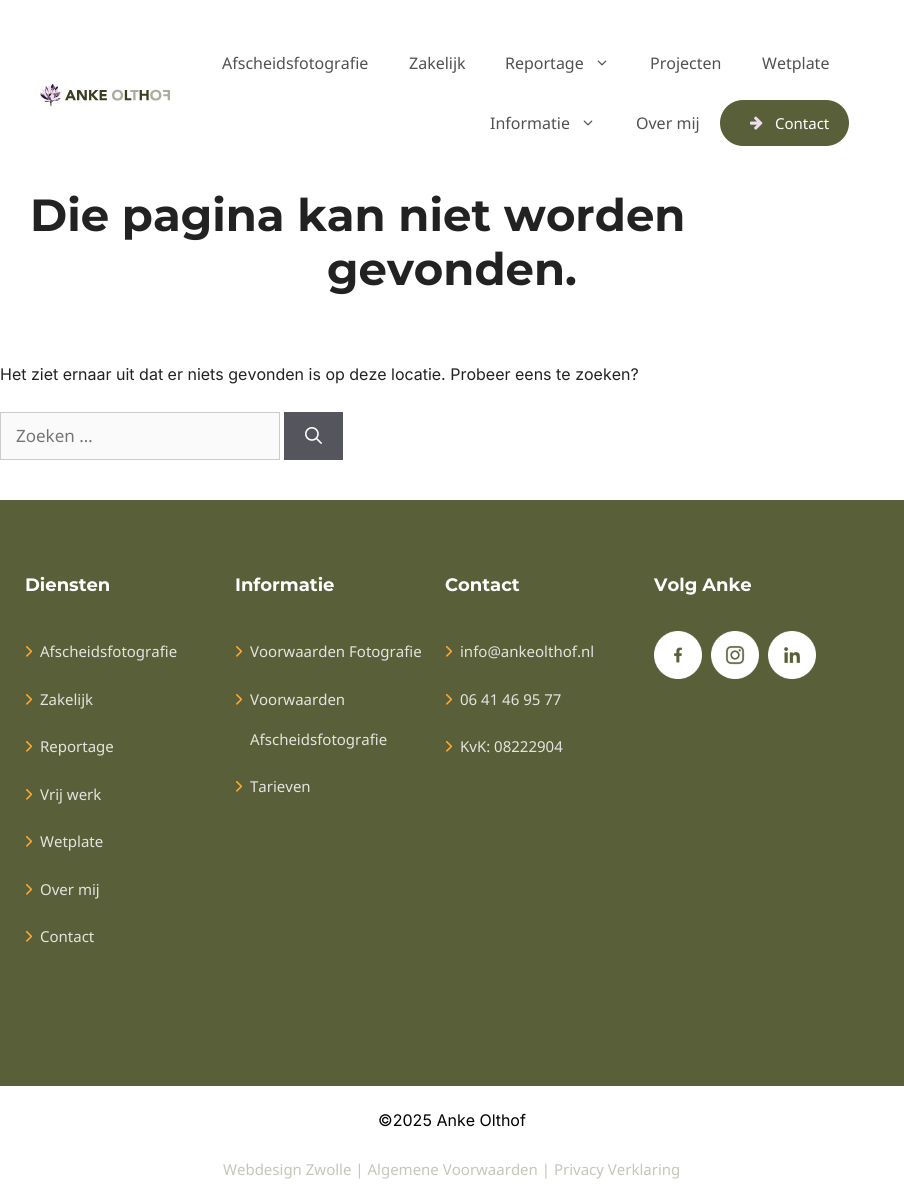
import math
import cairo

surface = cairo.ImageSurface(cairo.FORMAT_RGB24, 904, 1199)
cr = cairo.Context(surface)
options = cairo.FontOptions()
options.set_hint_metrics(cairo.HINT_METRICS_OFF)
options.set_hint_style(cairo.HINT_STYLE_NONE)
cr.set_font_options(options)
cr.set_miter_limit(4)


def rgb(code):
    cr.set_source_rgb(*(v / 255 for v in bytes.fromhex(code[-6:])))


def rrect(x, y, w, h, r):
    cr.new_sub_path()
    for i, (u, v) in enumerate([(x + w - r, y + h - r), (x + r, y + h - r), (x + r, y + r), (x + w - r, y + r)]):
        cr.arc(u, v, r, i * math.pi / 2, (i + 1) * math.pi / 2)
    cr.close_path()


def image(path, x, y, w, h):
    cr.save()
    cr.set_source_surface(cairo.ImageSurface.create_from_png(path), x, y)
    cr.rectangle(x, y, w, h)
    cr.fill()
    cr.restore()


rgb("#ffffff")
cr.paint()
image("img/1.png", 40, 84, 130, 22)
image("img/2.png", 597, 60, 10, 6)
image("img/2.png", 583, 120, 10, 6)
rgb("#595f39")
rrect(720, 100, 129, 46, 23)
cr.fill()
image("img/3.png", 750, 116, 13, 14)
rgb("#fafafa")
cr.rectangle(0.5, 412.5, 279, 47)
cr.fill_preserve()
rgb("#cccccc")
cr.set_line_width(1)
cr.stroke()
rgb("#55555e")
cr.rectangle(284, 412, 59, 48)
cr.fill()
image("img/4.png", 305, 427, 17, 17)
rgb("#595f39")
cr.rectangle(0, 500, 904, 586)
cr.fill()
image("img/5.png", 26, 646, 6, 11)
image("img/5.png", 26, 694, 6, 11)
image("img/5.png", 26, 741, 6, 11)
image("img/5.png", 26, 789, 6, 11)
image("img/5.png", 26, 836, 6, 11)
image("img/5.png", 26, 884, 6, 11)
image("img/5.png", 26, 931, 6, 11)
image("img/5.png", 236, 646, 6, 11)
image("img/5.png", 236, 694, 6, 11)
image("img/5.png", 236, 781, 6, 11)
image("img/5.png", 446, 646, 6, 11)
image("img/5.png", 446, 694, 6, 11)
image("img/5.png", 446, 741, 6, 11)
image("img/6.png", 654, 631, 48, 48)
image("img/7.png", 711, 631, 48, 48)
image("img/8.png", 768, 631, 48, 48)
cr.select_font_face("Noto Sans")
cr.set_font_size(16)
rgb("#515151")
for x, y, s in [
    (222, 69, "Afscheidsfotografie"),
    (409, 69, "Zakelijk"),
    (505, 69, "Reportage"),
    (650, 69, "Projecten"),
    (762, 69, "Wetplate"),
    (490, 129, "Informatie"),
    (636, 129, "Over mij"),
]:
    cr.move_to(x, y)
    cr.show_text(s)
cr.set_font_size(15)
rgb("#ffffff")
cr.move_to(775, 129)
cr.show_text("Contact")
cr.select_font_face("Montserrat", cairo.FONT_SLANT_NORMAL, cairo.FONT_WEIGHT_BOLD)
cr.set_font_size(45)
rgb("#222222")
cr.move_to(30, 231)
cr.show_text("Die pagina kan niet worden")
cr.move_to(327, 285)
cr.show_text("gevonden.")
cr.select_font_face("Inter")
cr.set_font_size(16)
cr.move_to(0, 380)
cr.show_text("Het ziet ernaar uit dat er niets gevonden is op deze locatie. Probeer eens te zoeken?")
cr.select_font_face("Noto Sans")
cr.set_font_size(17)
rgb("#757575")
cr.move_to(16, 442)
cr.show_text("Zoeken …")
cr.select_font_face("Montserrat", cairo.FONT_SLANT_NORMAL, cairo.FONT_WEIGHT_BOLD)
cr.set_font_size(18)
rgb("#ffffff")
cr.move_to(25, 591)
cr.show_text("Diensten")
cr.select_font_face("Noto Sans")
cr.set_font_size(15)
rgb("#e4e3de")
for x, y, s in [
    (40, 657, "Afscheidsfotografie"),
    (40, 705, "Zakelijk"),
    (40, 752, "Reportage"),
    (40, 800, "Vrij werk"),
    (40, 847, "Wetplate"),
    (40, 895, "Over mij"),
    (40, 942, "Contact"),
]:
    cr.move_to(x, y)
    cr.show_text(s)
cr.select_font_face("Montserrat", cairo.FONT_SLANT_NORMAL, cairo.FONT_WEIGHT_BOLD)
cr.set_font_size(18)
rgb("#ffffff")
cr.move_to(235, 591)
cr.show_text("Informatie")
cr.select_font_face("Noto Sans")
cr.set_font_size(15)
rgb("#e4e3de")
for x, y, s in [
    (250, 657, "Voorwaarden Fotografie"),
    (250, 705, "Voorwaarden"),
    (250, 745, "Afscheidsfotografie"),
    (250, 792, "Tarieven"),
]:
    cr.move_to(x, y)
    cr.show_text(s)
cr.select_font_face("Montserrat", cairo.FONT_SLANT_NORMAL, cairo.FONT_WEIGHT_BOLD)
cr.set_font_size(18)
rgb("#ffffff")
cr.move_to(445, 591)
cr.show_text("Contact")
cr.select_font_face("Noto Sans")
cr.set_font_size(15)
rgb("#e4e3de")
for x, y, s in [
    (460, 657, "info@ankeolthof.nl"),
    (460, 705, "06 41 46 95 77"),
    (460, 752, "KvK: 08222904"),
]:
    cr.move_to(x, y)
    cr.show_text(s)
cr.select_font_face("Montserrat", cairo.FONT_SLANT_NORMAL, cairo.FONT_WEIGHT_BOLD)
cr.set_font_size(18)
rgb("#ffffff")
cr.move_to(654, 591)
cr.show_text("Volg Anke")
cr.select_font_face("Inter")
cr.set_font_size(16)
rgb("#000000")
cr.move_to(378, 1126)
cr.show_text("©2025 Anke Olthof")
cr.select_font_face("Noto Sans")
cr.set_font_size(15)
rgb("#c4c6bb")
cr.move_to(223, 1175)
cr.show_text("Webdesign Zwolle | Algemene Voorwaarden | Privacy Verklaring")
surface.write_to_png("page.png")
